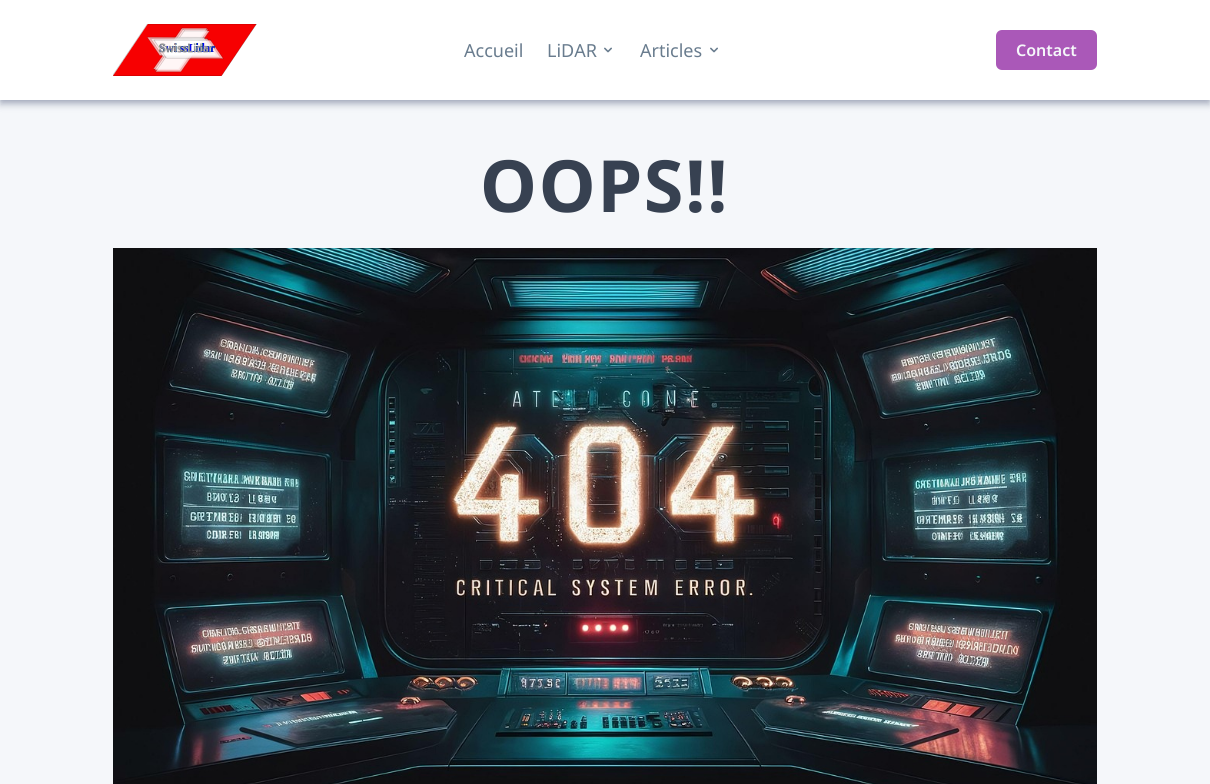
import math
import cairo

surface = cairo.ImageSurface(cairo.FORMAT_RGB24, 1210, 784)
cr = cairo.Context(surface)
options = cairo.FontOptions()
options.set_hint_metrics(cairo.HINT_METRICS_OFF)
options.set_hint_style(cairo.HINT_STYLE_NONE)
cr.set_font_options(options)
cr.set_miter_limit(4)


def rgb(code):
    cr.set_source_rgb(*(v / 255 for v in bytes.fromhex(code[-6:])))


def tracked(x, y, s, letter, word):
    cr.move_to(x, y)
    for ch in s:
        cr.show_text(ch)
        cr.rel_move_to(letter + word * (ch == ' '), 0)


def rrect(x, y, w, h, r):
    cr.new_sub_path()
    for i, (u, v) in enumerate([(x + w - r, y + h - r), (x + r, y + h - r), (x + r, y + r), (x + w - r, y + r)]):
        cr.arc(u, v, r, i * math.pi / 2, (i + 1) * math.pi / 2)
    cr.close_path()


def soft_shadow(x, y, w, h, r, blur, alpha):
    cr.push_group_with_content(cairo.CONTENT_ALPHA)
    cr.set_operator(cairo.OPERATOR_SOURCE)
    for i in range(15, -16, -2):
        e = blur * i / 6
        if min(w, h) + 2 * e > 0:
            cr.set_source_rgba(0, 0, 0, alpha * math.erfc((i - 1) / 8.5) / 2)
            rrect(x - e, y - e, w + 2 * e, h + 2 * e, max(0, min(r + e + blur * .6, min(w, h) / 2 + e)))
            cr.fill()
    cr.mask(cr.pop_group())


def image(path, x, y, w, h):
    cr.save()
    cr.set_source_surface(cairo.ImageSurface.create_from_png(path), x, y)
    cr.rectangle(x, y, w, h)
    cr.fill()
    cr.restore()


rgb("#f5f7fa")
cr.paint()
rgb("#1a2952")
soft_shadow(0, 6, 1210, 100, 0, 3, 0.2)
soft_shadow(0, 2, 1210, 100, 0, 2, 0.2)
rgb("#ffffff")
cr.rectangle(0, 0, 1210, 100)
cr.fill()
image("img/1.png", 113, 24, 144, 52)
image("img/2.png", 604, 47, 8, 6)
image("img/2.png", 710, 47, 8, 6)
rgb("#aa58b8")
rrect(996, 30, 101, 40, 6)
cr.fill()
image("img/3.png", 113, 248, 984, 536)
cr.select_font_face("Noto Sans")
cr.set_font_size(18)
rgb("#697c8e")
for x, y, s in [
    (464, 57, "Accueil"),
    (547, 57, "LiDAR"),
    (640, 57, "Articles"),
]:
    cr.move_to(x, y)
    cr.show_text(s)
cr.select_font_face("Noto Sans SemiBold")
cr.set_font_size(16)
rgb("#f5f7fa")
cr.move_to(1016, 56)
cr.show_text("Contact")
cr.select_font_face("Noto Sans", cairo.FONT_SLANT_NORMAL, cairo.FONT_WEIGHT_BOLD)
cr.set_font_size(72)
rgb("#374151")
tracked(480, 212, "OOPS!!", 1.75, 0)
surface.write_to_png("page.png")
